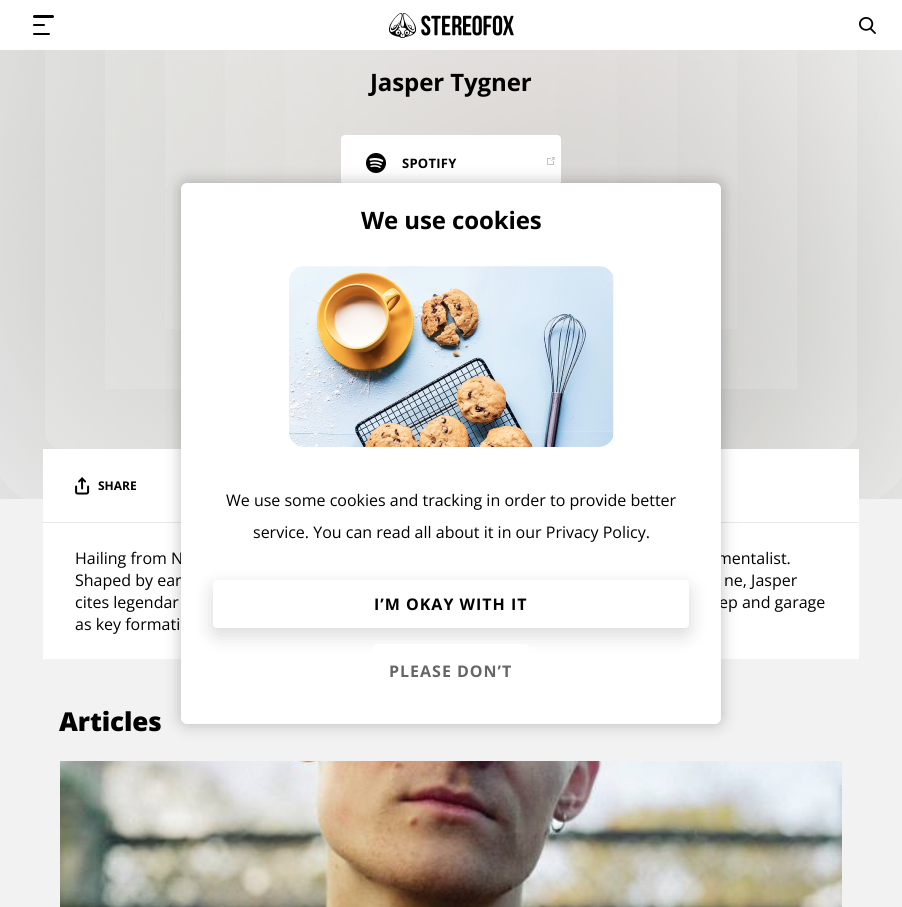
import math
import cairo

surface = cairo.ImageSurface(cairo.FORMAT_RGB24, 902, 907)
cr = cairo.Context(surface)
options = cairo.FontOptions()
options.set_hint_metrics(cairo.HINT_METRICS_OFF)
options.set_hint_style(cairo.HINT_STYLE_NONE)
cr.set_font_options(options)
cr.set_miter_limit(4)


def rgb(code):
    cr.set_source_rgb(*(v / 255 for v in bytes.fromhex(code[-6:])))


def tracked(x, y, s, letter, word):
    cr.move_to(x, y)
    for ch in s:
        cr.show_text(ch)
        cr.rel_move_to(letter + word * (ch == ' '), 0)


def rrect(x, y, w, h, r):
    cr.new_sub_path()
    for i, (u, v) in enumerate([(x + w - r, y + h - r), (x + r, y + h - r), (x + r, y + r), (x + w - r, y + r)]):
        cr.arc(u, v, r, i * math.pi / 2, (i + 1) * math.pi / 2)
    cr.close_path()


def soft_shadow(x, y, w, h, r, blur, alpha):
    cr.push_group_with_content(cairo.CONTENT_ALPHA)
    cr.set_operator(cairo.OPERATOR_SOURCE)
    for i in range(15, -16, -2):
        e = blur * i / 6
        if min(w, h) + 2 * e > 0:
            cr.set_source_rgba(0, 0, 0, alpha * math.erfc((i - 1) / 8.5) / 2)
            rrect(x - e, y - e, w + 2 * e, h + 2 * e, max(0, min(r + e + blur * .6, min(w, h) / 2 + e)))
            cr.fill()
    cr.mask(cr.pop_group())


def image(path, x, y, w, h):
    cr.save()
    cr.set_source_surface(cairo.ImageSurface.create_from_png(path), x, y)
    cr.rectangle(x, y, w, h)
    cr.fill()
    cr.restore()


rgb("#f2f2f2")
cr.paint()
cr.save()
cr.rectangle(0, 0, 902, 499)
cr.clip()
rgb("#ffffff")
soft_shadow(-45, -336, 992, 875, 0, 180, 1)
cr.restore()
image("img/3.png", 0, 50, 902, 449)
cr.save()
cr.rectangle(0, 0, 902, 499)
cr.clip()
rgb("#ffffff")
soft_shadow(-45, -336, 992, 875, 0, 180, 0.66)
cr.restore()
rgb("#ffffff")
cr.rectangle(0, 0, 902, 50)
cr.fill()
rgb("#000000")
rrect(33, 15, 21, 3, 1.5)
cr.fill()
rrect(33, 24, 12, 2, 1)
cr.fill()
rrect(33, 33, 17, 2, 1)
cr.fill()
image("img/1.png", 389, 13, 125, 25)
image("img/2.png", 859, 17, 17, 17)
rgb("#ffffff")
rrect(341, 135, 220, 56, 4)
cr.fill()
image("img/4.png", 366, 153, 20, 20)
image("img/5.png", 547, 157, 8, 8)
cr.rectangle(43, 449, 816, 73)
cr.fill()
rgb("#e9e9e9")
cr.rectangle(43, 522, 816, 1)
cr.fill()
image("img/6.png", 75, 477, 15, 18)
rgb("#ffffff")
cr.rectangle(43, 523, 816, 136)
cr.fill()
image("img/7.png", 60, 761, 782, 146)
rgb("#000000")
soft_shadow(181, 183, 540, 541, 6, 8, 0.25)
cr.select_font_face("Open Sans", cairo.FONT_SLANT_NORMAL, cairo.FONT_WEIGHT_BOLD)
cr.set_font_size(24)
rgb("#000000")
tracked(370, 91, "Jasper Tygner", -0.1, 0)
cr.set_font_size(13)
tracked(402, 168, "SPOTIFY", 0.25, 0)
cr.set_font_size(12)
cr.move_to(98, 490)
cr.show_text("SHARE")
cr.select_font_face("Open Sans")
cr.set_font_size(16)
for x, y, s in [
    (75, 564, "Hailing from N"),
    (717, 564, "mentalist."),
    (75, 586, "Shaped by ear"),
    (724, 586, "ne, Jasper"),
    (75, 608, "cites legendar"),
    (719, 608, "ep and garage"),
    (75, 630, "as key formati"),
]:
    cr.move_to(x, y)
    cr.show_text(s)
cr.select_font_face("Open Sans ExtraBold")
cr.set_font_size(26)
tracked(59, 731, "Articles", -0.1, 0)
rgb("#ffffff")
rrect(181, 183, 540, 541, 6)
cr.fill()
cr.select_font_face("Open Sans", cairo.FONT_SLANT_NORMAL, cairo.FONT_WEIGHT_BOLD)
cr.set_font_size(24)
rgb("#000000")
tracked(361, 229, "We use cookies", -0.1, 0)
image("img/8.png", 289, 266, 325, 181)
cr.select_font_face("Open Sans")
cr.set_font_size(16)
cr.move_to(226, 506)
cr.show_text("We use some cookies and tracking in order to provide better")
cr.move_to(253, 538)
cr.show_text("service. You can read all about it in our Privacy Policy.")
rgb("#000000")
soft_shadow(213, 587, 476, 48, 4, 10, 0.15)
rgb("#ffffff")
rrect(213, 580, 476, 48, 4)
cr.fill()
cr.select_font_face("Open Sans", cairo.FONT_SLANT_NORMAL, cairo.FONT_WEIGHT_BOLD)
rgb("#000000")
tracked(374, 610, "I’M OKAY WITH IT", 1, 0)
rgb("#ffffff")
rrect(373, 644, 156, 56, 4)
cr.fill()
rgb("#666666")
tracked(389, 677, "PLEASE DON’T", 1, 0)
surface.write_to_png("page.png")
